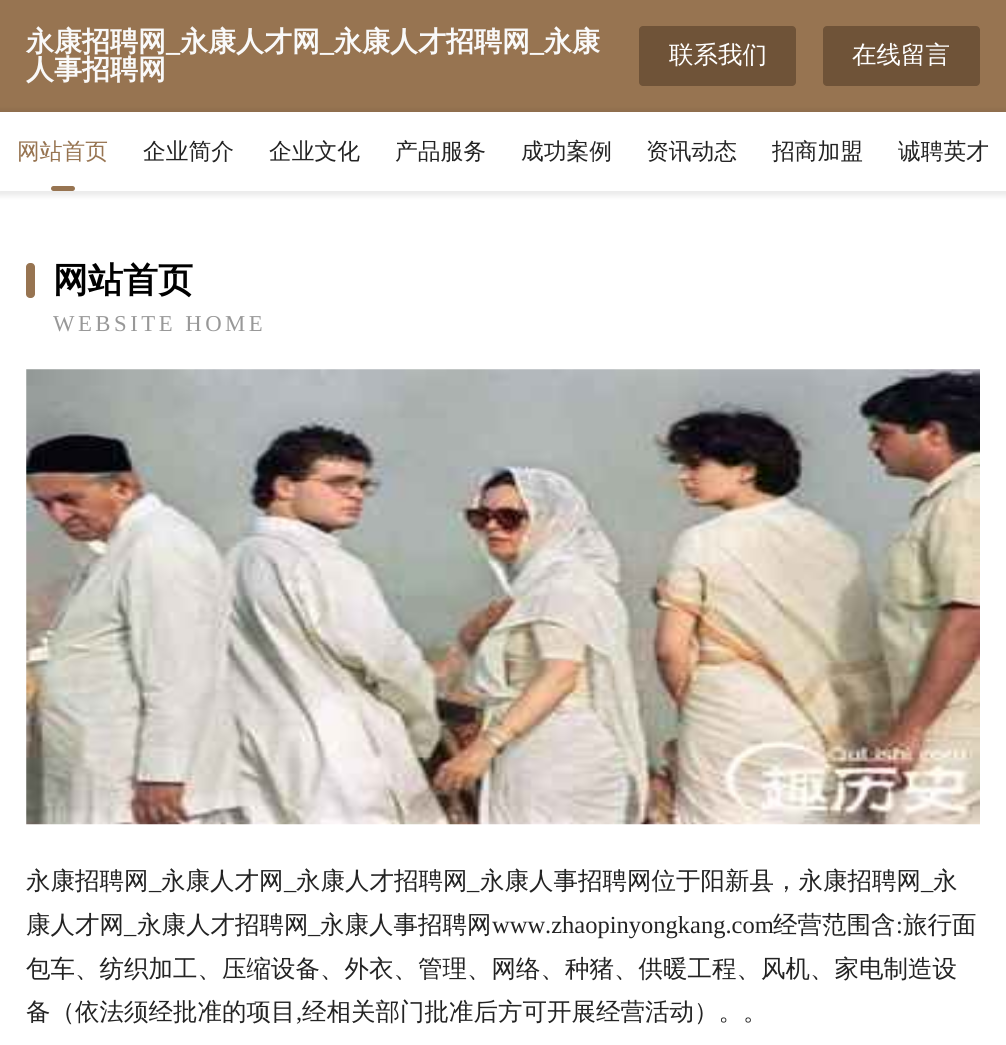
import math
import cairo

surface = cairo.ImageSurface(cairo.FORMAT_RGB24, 1006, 1045)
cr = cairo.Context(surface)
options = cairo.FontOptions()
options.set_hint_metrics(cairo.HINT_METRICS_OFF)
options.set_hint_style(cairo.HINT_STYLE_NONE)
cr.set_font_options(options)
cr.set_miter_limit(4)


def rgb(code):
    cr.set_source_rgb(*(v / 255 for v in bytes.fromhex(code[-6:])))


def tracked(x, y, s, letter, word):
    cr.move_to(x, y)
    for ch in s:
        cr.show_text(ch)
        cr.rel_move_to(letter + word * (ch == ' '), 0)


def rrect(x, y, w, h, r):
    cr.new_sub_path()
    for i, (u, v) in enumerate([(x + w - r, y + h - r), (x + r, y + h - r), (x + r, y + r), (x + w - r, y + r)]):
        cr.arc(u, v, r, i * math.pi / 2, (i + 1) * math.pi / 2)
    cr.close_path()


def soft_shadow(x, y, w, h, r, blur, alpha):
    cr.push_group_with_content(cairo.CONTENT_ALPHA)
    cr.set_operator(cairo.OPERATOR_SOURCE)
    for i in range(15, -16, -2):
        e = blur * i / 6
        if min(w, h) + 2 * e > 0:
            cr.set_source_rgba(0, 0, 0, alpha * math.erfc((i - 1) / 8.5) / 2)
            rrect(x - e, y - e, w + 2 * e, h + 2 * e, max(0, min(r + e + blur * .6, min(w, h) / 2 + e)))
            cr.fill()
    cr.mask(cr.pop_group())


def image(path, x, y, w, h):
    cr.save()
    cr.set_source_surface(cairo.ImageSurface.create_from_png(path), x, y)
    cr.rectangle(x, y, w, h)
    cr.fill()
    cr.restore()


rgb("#ffffff")
cr.paint()
rgb("#977451")
cr.rectangle(0, 0, 1006, 112)
cr.fill()
rgb("#6f5338")
rrect(639, 26, 157, 60, 4)
cr.fill()
rrect(823, 26, 157, 60, 4)
cr.fill()
rgb("#000000")
soft_shadow(-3, 110, 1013, 86, 0, 2.5, 0.08)
rgb("#ffffff")
cr.rectangle(0, 112, 1006, 79)
cr.fill()
rgb("#977451")
rrect(51, 186, 24, 5, 2.5)
cr.fill()
rrect(26, 263, 9, 35, 4)
cr.fill()
image("img/1.png", 26, 369, 954, 456)
cr.select_font_face("WenQuanYi Zen Hei", cairo.FONT_SLANT_NORMAL, cairo.FONT_WEIGHT_BOLD)
cr.set_font_size(28)
rgb("#f9f9f9")
cr.move_to(26, 51)
cr.show_text("永康招聘网")
cr.select_font_face("Liberation Serif", cairo.FONT_SLANT_NORMAL, cairo.FONT_WEIGHT_BOLD)
cr.move_to(166, 51)
cr.show_text("_")
cr.select_font_face("WenQuanYi Zen Hei", cairo.FONT_SLANT_NORMAL, cairo.FONT_WEIGHT_BOLD)
cr.move_to(180, 51)
cr.show_text("永康人才网")
cr.select_font_face("Liberation Serif", cairo.FONT_SLANT_NORMAL, cairo.FONT_WEIGHT_BOLD)
cr.move_to(320, 51)
cr.show_text("_")
cr.select_font_face("WenQuanYi Zen Hei", cairo.FONT_SLANT_NORMAL, cairo.FONT_WEIGHT_BOLD)
cr.move_to(334, 51)
cr.show_text("永康人才招聘网")
cr.select_font_face("Liberation Serif", cairo.FONT_SLANT_NORMAL, cairo.FONT_WEIGHT_BOLD)
cr.move_to(530, 51)
cr.show_text("_")
cr.select_font_face("WenQuanYi Zen Hei", cairo.FONT_SLANT_NORMAL, cairo.FONT_WEIGHT_BOLD)
cr.move_to(544, 51)
cr.show_text("永康")
cr.move_to(26, 79)
cr.show_text("人事招聘网")
cr.select_font_face("WenQuanYi Zen Hei Medium")
cr.set_font_size(24.5)
rgb("#ffffff")
cr.move_to(669, 63)
cr.show_text("联系我们")
cr.move_to(852, 63)
cr.show_text("在线留言")
cr.set_font_size(22.75)
rgb("#977451")
cr.move_to(17, 159)
cr.show_text("网站首页")
rgb("#232323")
for x, y, s in [
    (143, 159, "企业简介"),
    (269, 159, "企业文化"),
    (395, 159, "产品服务"),
    (521, 159, "成功案例"),
    (646, 159, "资讯动态"),
    (772, 159, "招商加盟"),
    (898, 159, "诚聘英才"),
]:
    cr.move_to(x, y)
    cr.show_text(s)
cr.select_font_face("WenQuanYi Zen Hei", cairo.FONT_SLANT_NORMAL, cairo.FONT_WEIGHT_BOLD)
cr.set_font_size(35)
rgb("#000000")
cr.move_to(53, 292)
cr.show_text("网站首页")
cr.select_font_face("Liberation Serif")
cr.set_font_size(22.75)
rgb("#989898")
tracked(53, 331, "WEBSITE HOME", 3.5, 0)
cr.select_font_face("WenQuanYi Zen Hei Medium")
cr.set_font_size(24.5)
rgb("#232323")
cr.move_to(26, 889)
cr.show_text("永康招聘网")
cr.select_font_face("Liberation Serif")
cr.move_to(149, 889)
cr.show_text("_")
cr.select_font_face("WenQuanYi Zen Hei Medium")
cr.move_to(161, 889)
cr.show_text("永康人才网")
cr.select_font_face("Liberation Serif")
cr.move_to(284, 889)
cr.show_text("_")
cr.select_font_face("WenQuanYi Zen Hei Medium")
cr.move_to(296, 889)
cr.show_text("永康人才招聘网")
cr.select_font_face("Liberation Serif")
cr.move_to(467, 889)
cr.show_text("_")
cr.select_font_face("WenQuanYi Zen Hei Medium")
cr.move_to(480, 889)
cr.show_text("永康人事招聘网位于阳新县，永康招聘网")
cr.select_font_face("Liberation Serif")
cr.move_to(921, 889)
cr.show_text("_")
cr.select_font_face("WenQuanYi Zen Hei Medium")
cr.move_to(933, 889)
cr.show_text("永")
cr.move_to(26, 933)
cr.show_text("康人才网")
cr.select_font_face("Liberation Serif")
cr.move_to(492, 933)
cr.show_text("www.zhaopinyongkang.com")
cr.select_font_face("WenQuanYi Zen Hei Medium")
cr.move_to(773, 933)
cr.show_text("经营范围含")
cr.select_font_face("Liberation Serif")
cr.move_to(896, 933)
cr.show_text(":")
cr.select_font_face("WenQuanYi Zen Hei Medium")
cr.move_to(903, 933)
cr.show_text("旅行面")
cr.select_font_face("Liberation Serif")
cr.move_to(124, 933)
cr.show_text("_")
cr.select_font_face("WenQuanYi Zen Hei Medium")
cr.move_to(137, 933)
cr.show_text("永康人才招聘网")
cr.select_font_face("Liberation Serif")
cr.move_to(308, 933)
cr.show_text("_")
cr.select_font_face("WenQuanYi Zen Hei Medium")
for x, y, s in [
    (320, 933, "永康人事招聘网"),
    (26, 977, "包车、纺织加工、压缩设备、外衣、管理、网络、种猪、供暖工程、风机、家电制造设"),
    (26, 1020, "备（依法须经批准的项目"),
]:
    cr.move_to(x, y)
    cr.show_text(s)
cr.select_font_face("Liberation Serif")
cr.move_to(296, 1020)
cr.show_text(",")
cr.select_font_face("WenQuanYi Zen Hei Medium")
cr.move_to(302, 1020)
cr.show_text("经相关部门批准后方可开展经营活动）。。")
surface.write_to_png("page.png")
